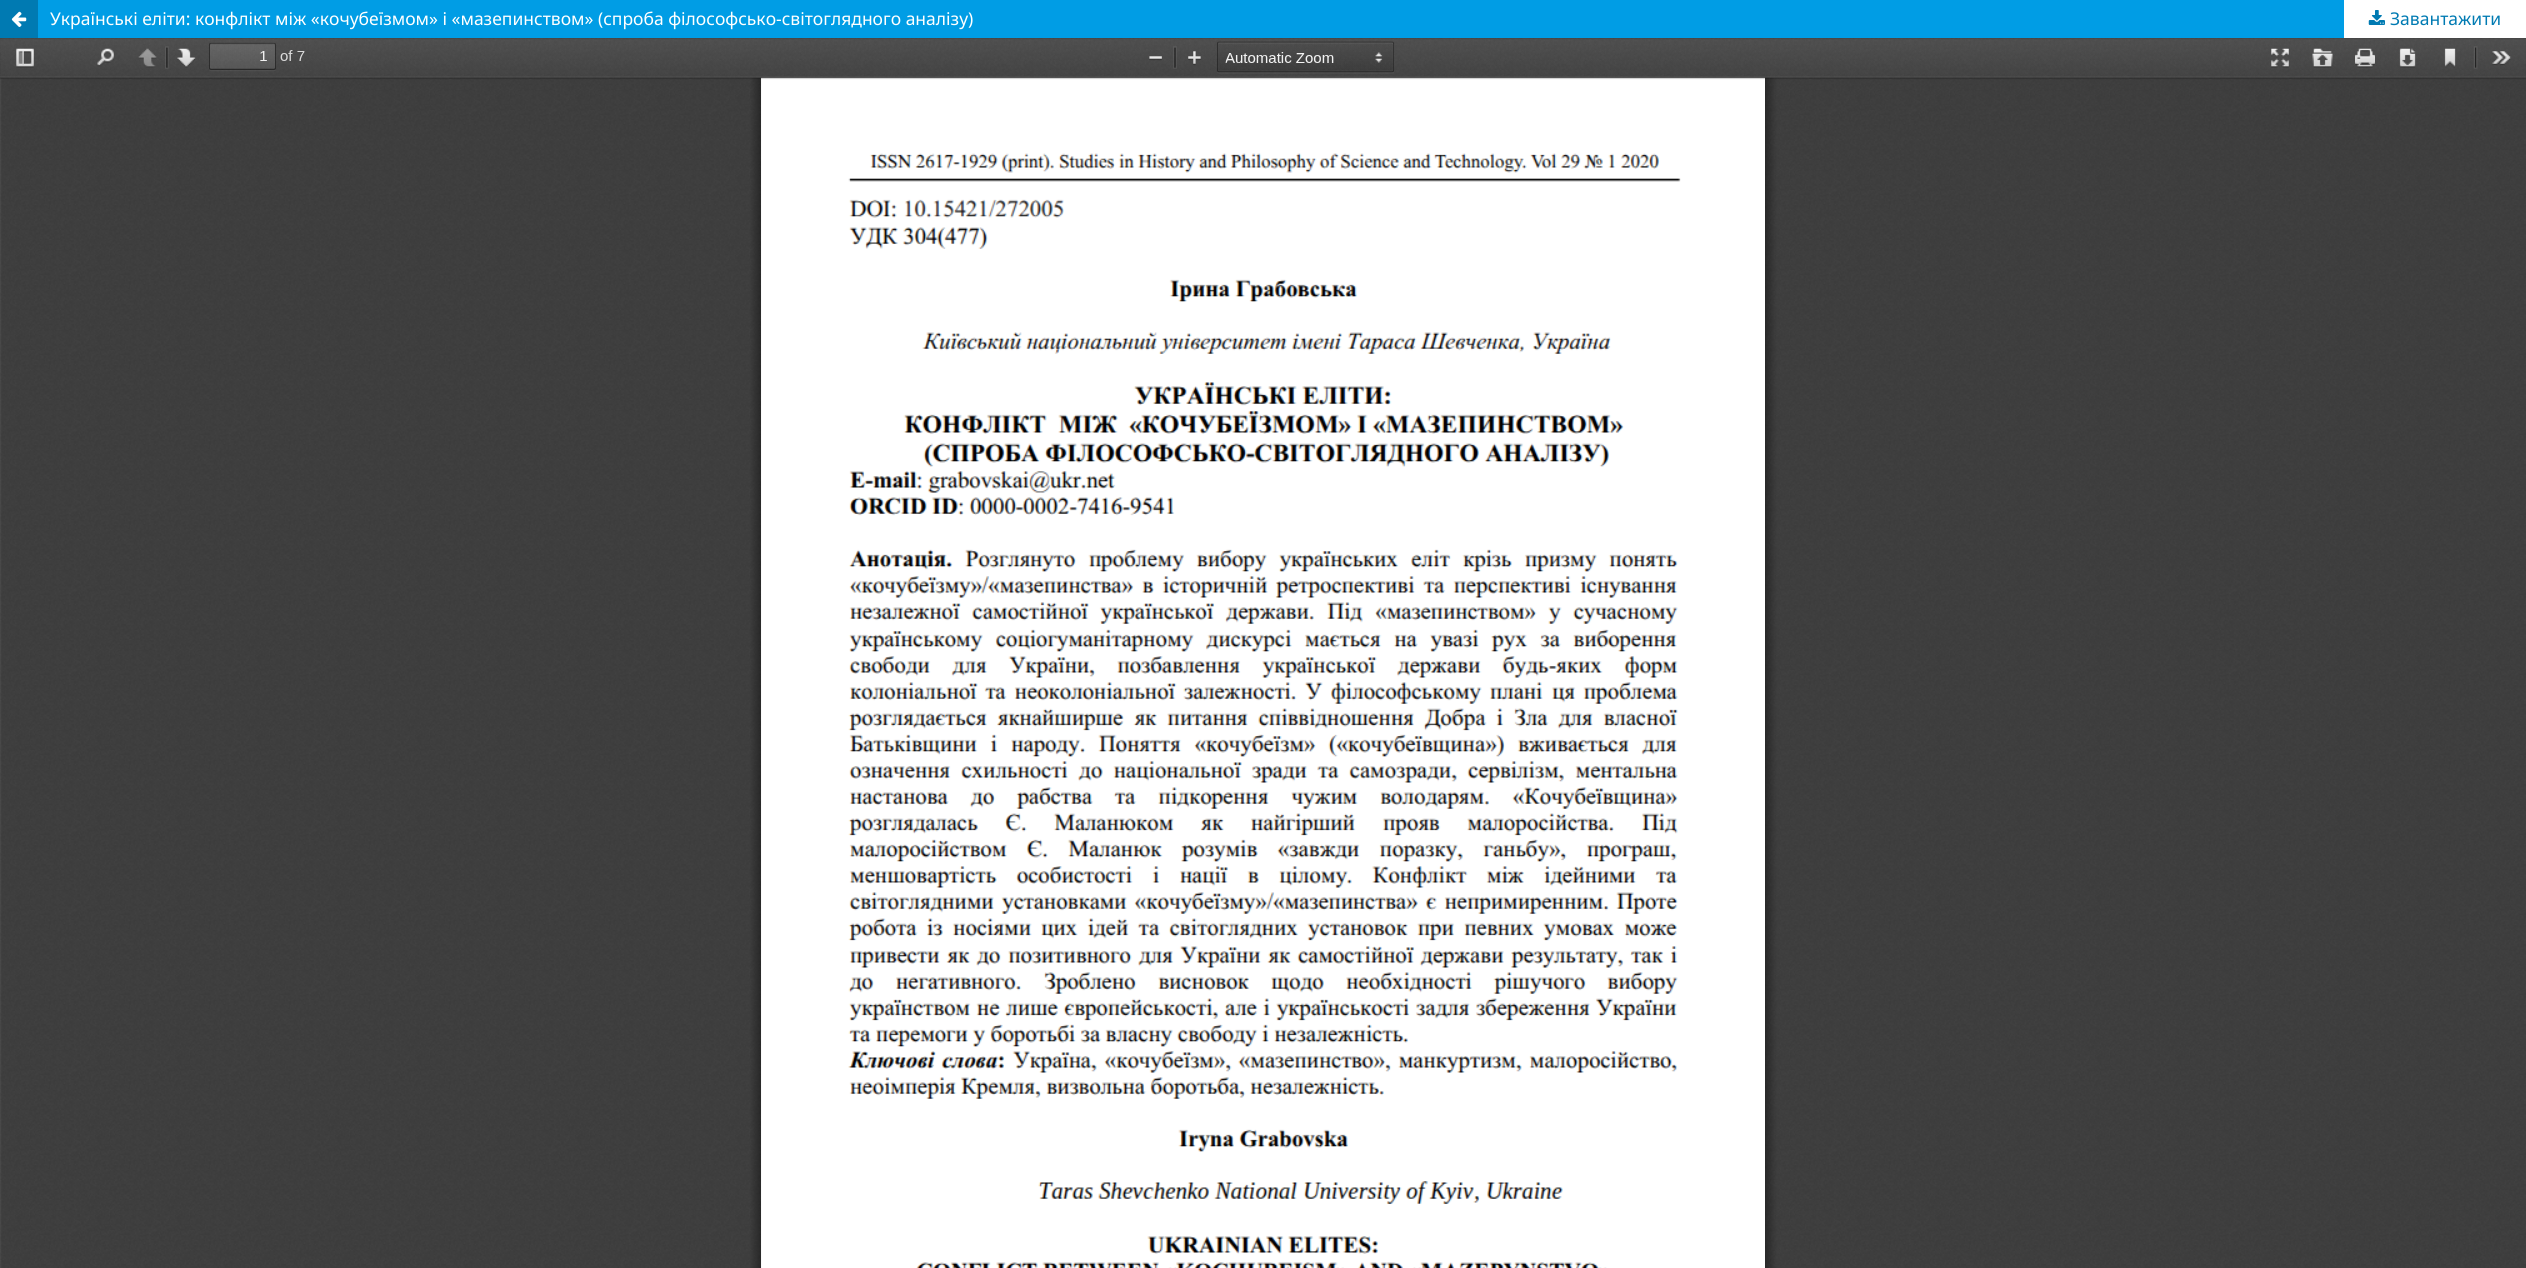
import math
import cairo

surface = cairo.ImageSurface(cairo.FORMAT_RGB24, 2526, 1268)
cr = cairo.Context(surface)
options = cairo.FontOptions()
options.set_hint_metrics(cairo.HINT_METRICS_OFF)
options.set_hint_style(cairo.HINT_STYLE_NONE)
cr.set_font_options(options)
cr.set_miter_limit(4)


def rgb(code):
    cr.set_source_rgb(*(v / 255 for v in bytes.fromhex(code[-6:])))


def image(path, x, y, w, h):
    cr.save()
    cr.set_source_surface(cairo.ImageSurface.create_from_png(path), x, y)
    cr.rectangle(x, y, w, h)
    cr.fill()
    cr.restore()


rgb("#ffffff")
cr.paint()
rgb("#009de5")
cr.rectangle(38, 0, 2306, 38)
cr.fill()
rgb("#007ab2")
cr.rectangle(0, 0, 38, 38)
cr.fill()
image("img/1.png", 11, 11, 16, 16)
image("img/2.png", 2368, 10, 17, 15)
image("img/3.png", 0, 38, 2526, 1230)
cr.select_font_face("Noto Sans")
cr.set_font_size(17.5)
rgb("#ffffff")
cr.move_to(50, 25)
cr.show_text("Українські еліти: конфлікт між «кочубеїзмом» і «мазепинством» (спроба філософсько-світоглядного аналізу)")
rgb("#007ab2")
cr.move_to(2390, 25)
cr.show_text("Завантажити")
surface.write_to_png("page.png")
